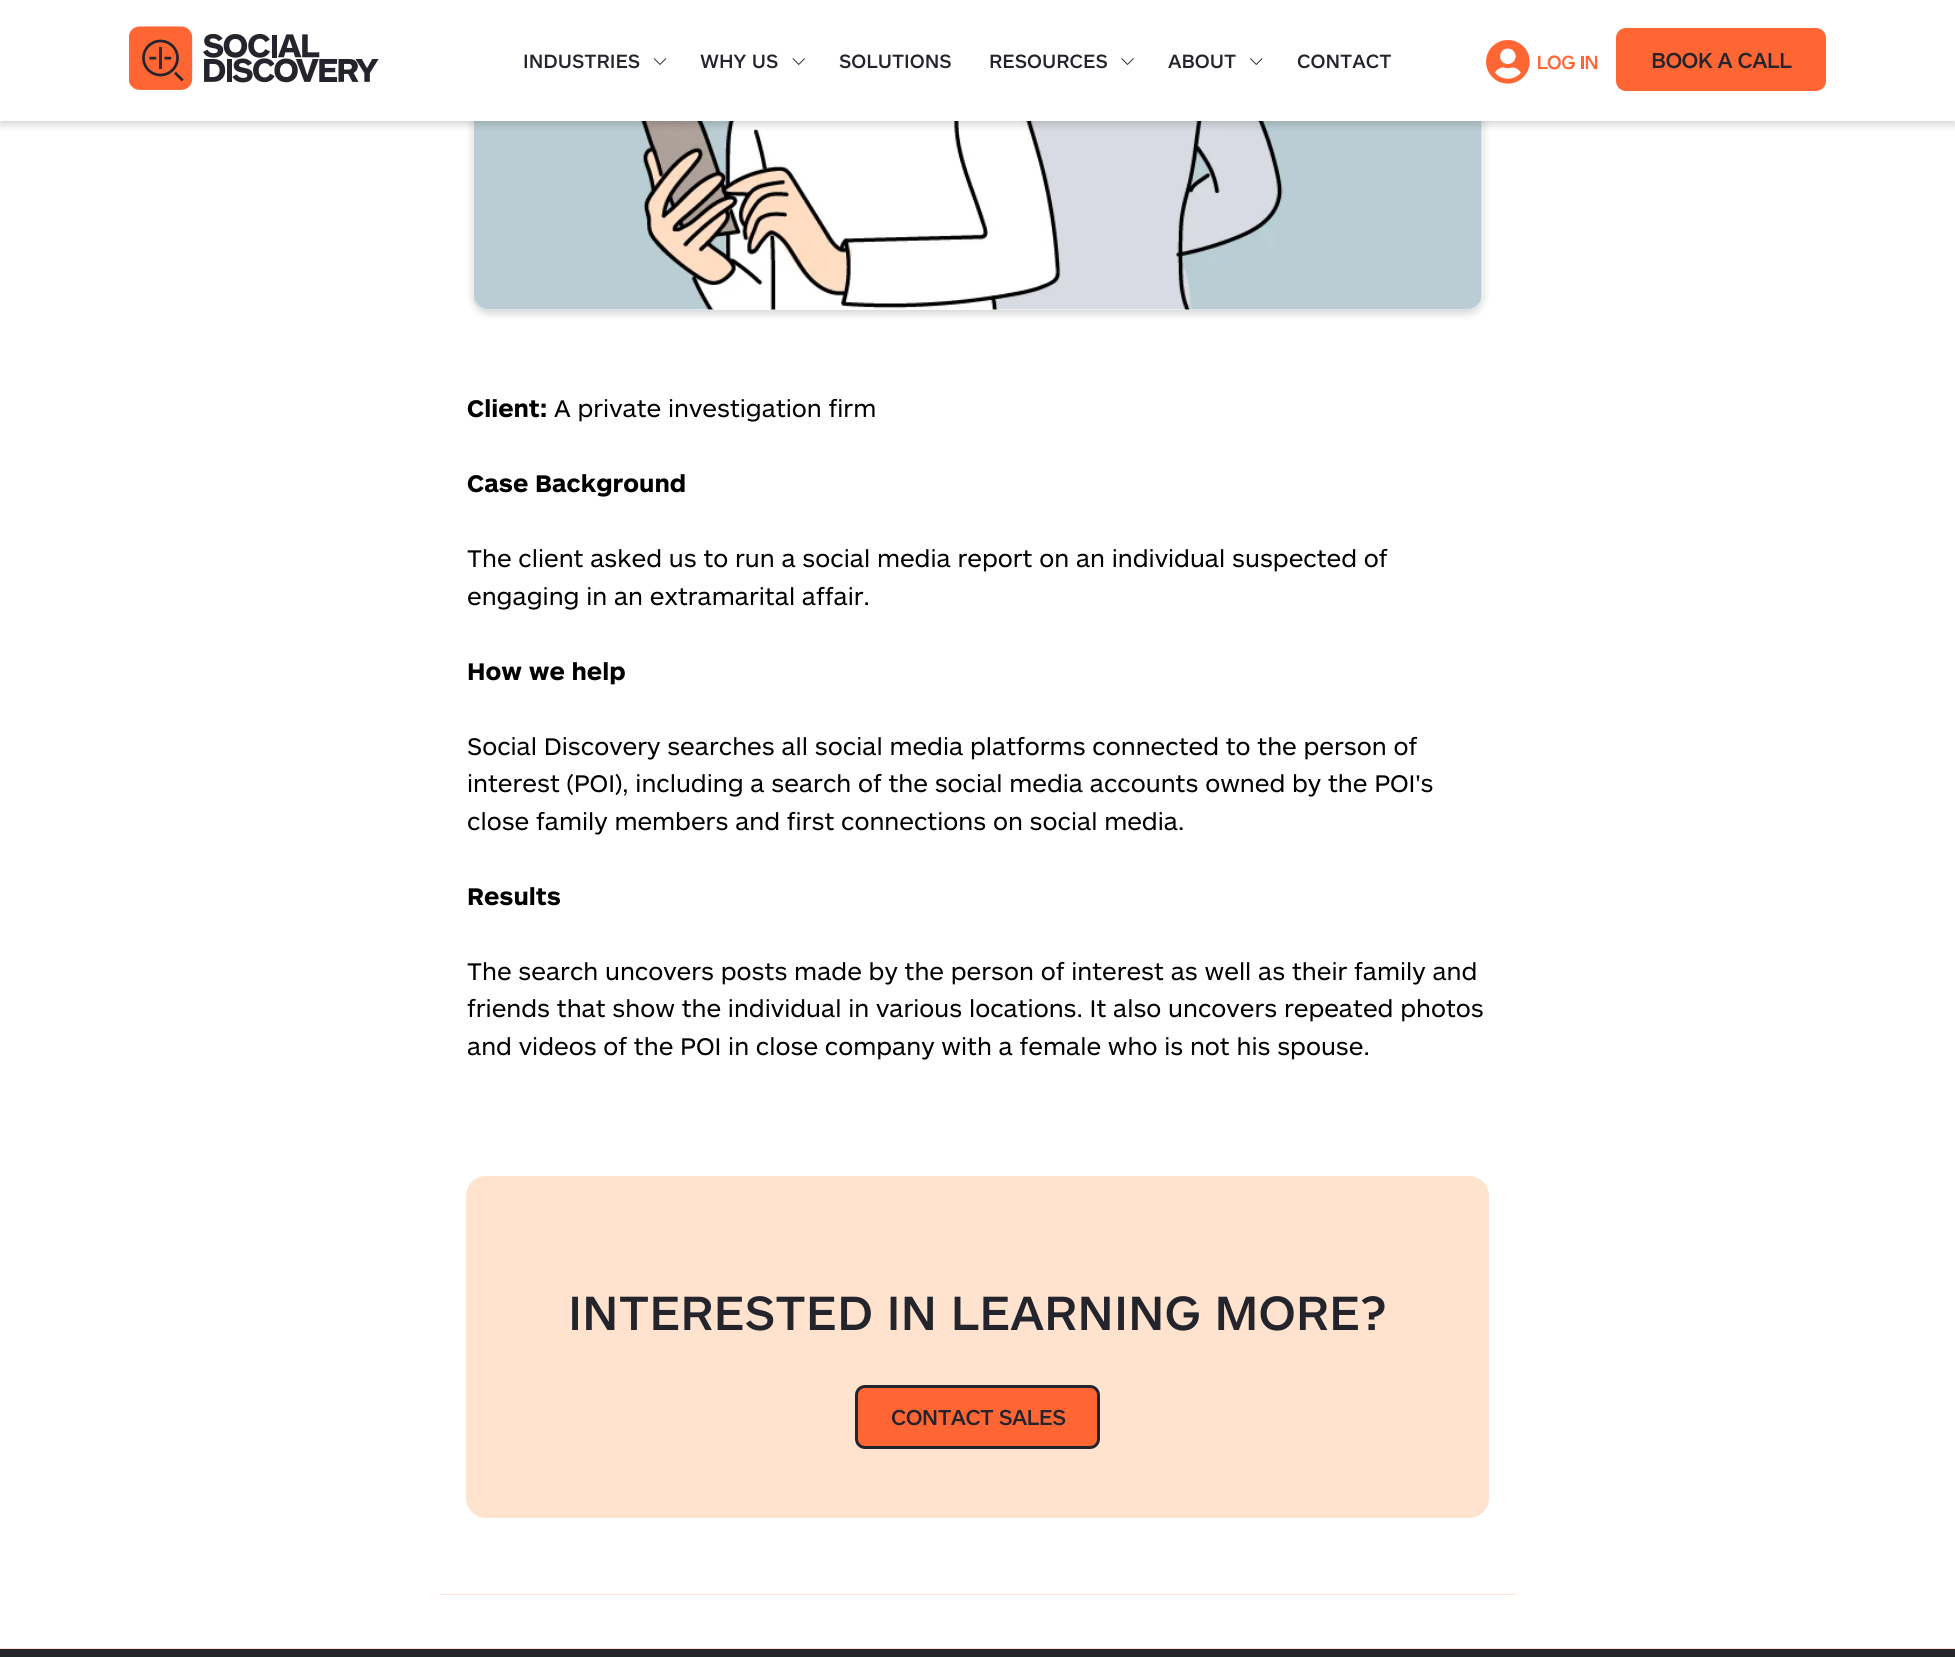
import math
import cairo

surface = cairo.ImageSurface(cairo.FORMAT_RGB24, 1955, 1657)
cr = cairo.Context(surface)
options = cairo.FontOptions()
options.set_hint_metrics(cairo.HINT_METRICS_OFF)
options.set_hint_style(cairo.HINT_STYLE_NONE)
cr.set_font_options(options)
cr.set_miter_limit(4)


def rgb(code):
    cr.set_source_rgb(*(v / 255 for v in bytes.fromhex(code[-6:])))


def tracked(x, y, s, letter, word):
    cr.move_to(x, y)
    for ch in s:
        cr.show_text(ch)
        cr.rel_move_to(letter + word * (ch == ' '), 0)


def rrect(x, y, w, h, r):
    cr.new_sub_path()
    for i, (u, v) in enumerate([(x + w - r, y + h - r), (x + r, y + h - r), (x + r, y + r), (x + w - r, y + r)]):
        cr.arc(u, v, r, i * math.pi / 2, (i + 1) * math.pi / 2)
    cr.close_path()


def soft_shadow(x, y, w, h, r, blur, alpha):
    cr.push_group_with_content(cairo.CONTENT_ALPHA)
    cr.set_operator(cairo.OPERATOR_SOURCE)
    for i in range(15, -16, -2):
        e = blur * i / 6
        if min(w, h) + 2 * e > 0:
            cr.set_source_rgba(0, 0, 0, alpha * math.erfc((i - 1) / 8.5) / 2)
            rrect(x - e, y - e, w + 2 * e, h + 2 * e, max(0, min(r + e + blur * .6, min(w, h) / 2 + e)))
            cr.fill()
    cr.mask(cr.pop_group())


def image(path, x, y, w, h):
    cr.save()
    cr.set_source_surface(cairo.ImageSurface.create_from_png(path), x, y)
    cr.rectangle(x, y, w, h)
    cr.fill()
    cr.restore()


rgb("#ffffff")
cr.paint()
rgb("#000000")
soft_shadow(473, -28, 1010, 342, 16, 4, 0.16)
image("img/7.png", 473, 121, 1009, 189)
rrect(473.5, -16.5, 1009, 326, 15.5)
cr.set_source_rgba(1, 1, 1, 0.5)
cr.set_line_width(1)
cr.stroke()
rgb("#000000")
soft_shadow(0, 4, 1955, 121, 0, 4, 0.16)
rgb("#ffffff")
cr.rectangle(0, 0, 1955, 121)
cr.fill()
image("img/1.png", 129, 26, 250, 64)
image("img/2.png", 653, 58, 14, 7)
image("img/3.png", 792, 58, 13, 7)
image("img/4.png", 1121, 58, 13, 7)
image("img/5.png", 1250, 58, 13, 7)
rgb("#e7eef1")
cr.rectangle(1618, 87, 1, 2)
cr.fill()
image("img/6.png", 1486, 40, 112, 44)
rgb("#ff6633")
rrect(1616, 28, 210, 63, 10)
cr.fill()
rgb("#ffe3da")
cr.rectangle(0, 1648, 1955, 1)
cr.fill()
cr.rectangle(440, 1594, 1075, 1)
cr.fill()
rgb("#ffe3ce")
rrect(466, 1176, 1023, 342, 20)
cr.fill()
rgb("#ff6633")
rrect(856.5, 1386.5, 242, 61, 8.5)
cr.fill_preserve()
rgb("#24242d")
cr.set_line_width(3)
cr.stroke()
cr.rectangle(0, 1649, 1955, 8)
cr.fill()
cr.select_font_face("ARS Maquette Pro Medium")
cr.set_font_size(20)
for x, y, s in [
    (523, 68, "INDUSTRIES"),
    (700, 68, "WHY US"),
    (839, 68, "SOLUTIONS"),
    (989, 68, "RESOURCES"),
    (1168, 68, "ABOUT"),
    (1297, 68, "CONTACT"),
]:
    cr.move_to(x, y)
    cr.show_text(s)
cr.set_font_size(22.5)
tracked(1651, 68, "BOOK A CALL", -0.6, 0)
cr.select_font_face("ARS Maquette Pro", cairo.FONT_SLANT_NORMAL, cairo.FONT_WEIGHT_BOLD)
cr.set_font_size(25)
rgb("#000000")
cr.move_to(467, 417)
cr.show_text("Client:")
cr.select_font_face("ARS Maquette Pro")
cr.move_to(554, 417)
cr.show_text("A private investigation firm")
cr.select_font_face("ARS Maquette Pro", cairo.FONT_SLANT_NORMAL, cairo.FONT_WEIGHT_BOLD)
cr.move_to(467, 492)
cr.show_text("Case Background")
cr.select_font_face("ARS Maquette Pro")
cr.move_to(467, 567)
cr.show_text("The client asked us to run a social media report on an individual suspected of")
cr.move_to(467, 605)
cr.show_text("engaging in an extramarital affair.")
cr.select_font_face("ARS Maquette Pro", cairo.FONT_SLANT_NORMAL, cairo.FONT_WEIGHT_BOLD)
cr.move_to(467, 680)
cr.show_text("How we help")
cr.select_font_face("ARS Maquette Pro")
for x, y, s in [
    (467, 755, "Social Discovery searches all social media platforms connected to the person of"),
    (467, 792, "interest (POI), including a search of the social media accounts owned by the POI's"),
    (467, 830, "close family members and first connections on social media."),
]:
    cr.move_to(x, y)
    cr.show_text(s)
cr.select_font_face("ARS Maquette Pro", cairo.FONT_SLANT_NORMAL, cairo.FONT_WEIGHT_BOLD)
cr.move_to(467, 905)
cr.show_text("Results")
cr.select_font_face("ARS Maquette Pro")
for x, y, s in [
    (467, 980, "The search uncovers posts made by the person of interest as well as their family and"),
    (467, 1017, "friends that show the individual in various locations. It also uncovers repeated photos"),
    (467, 1055, "and videos of the POI in close company with a female who is not his spouse."),
]:
    cr.move_to(x, y)
    cr.show_text(s)
cr.select_font_face("ARS Maquette Pro Medium")
cr.set_font_size(50)
rgb("#24242d")
cr.move_to(568, 1330)
cr.show_text("INTERESTED IN LEARNING MORE?")
cr.set_font_size(22.5)
tracked(891, 1425, "CONTACT SALES", -0.6, 0)
surface.write_to_png("page.png")
